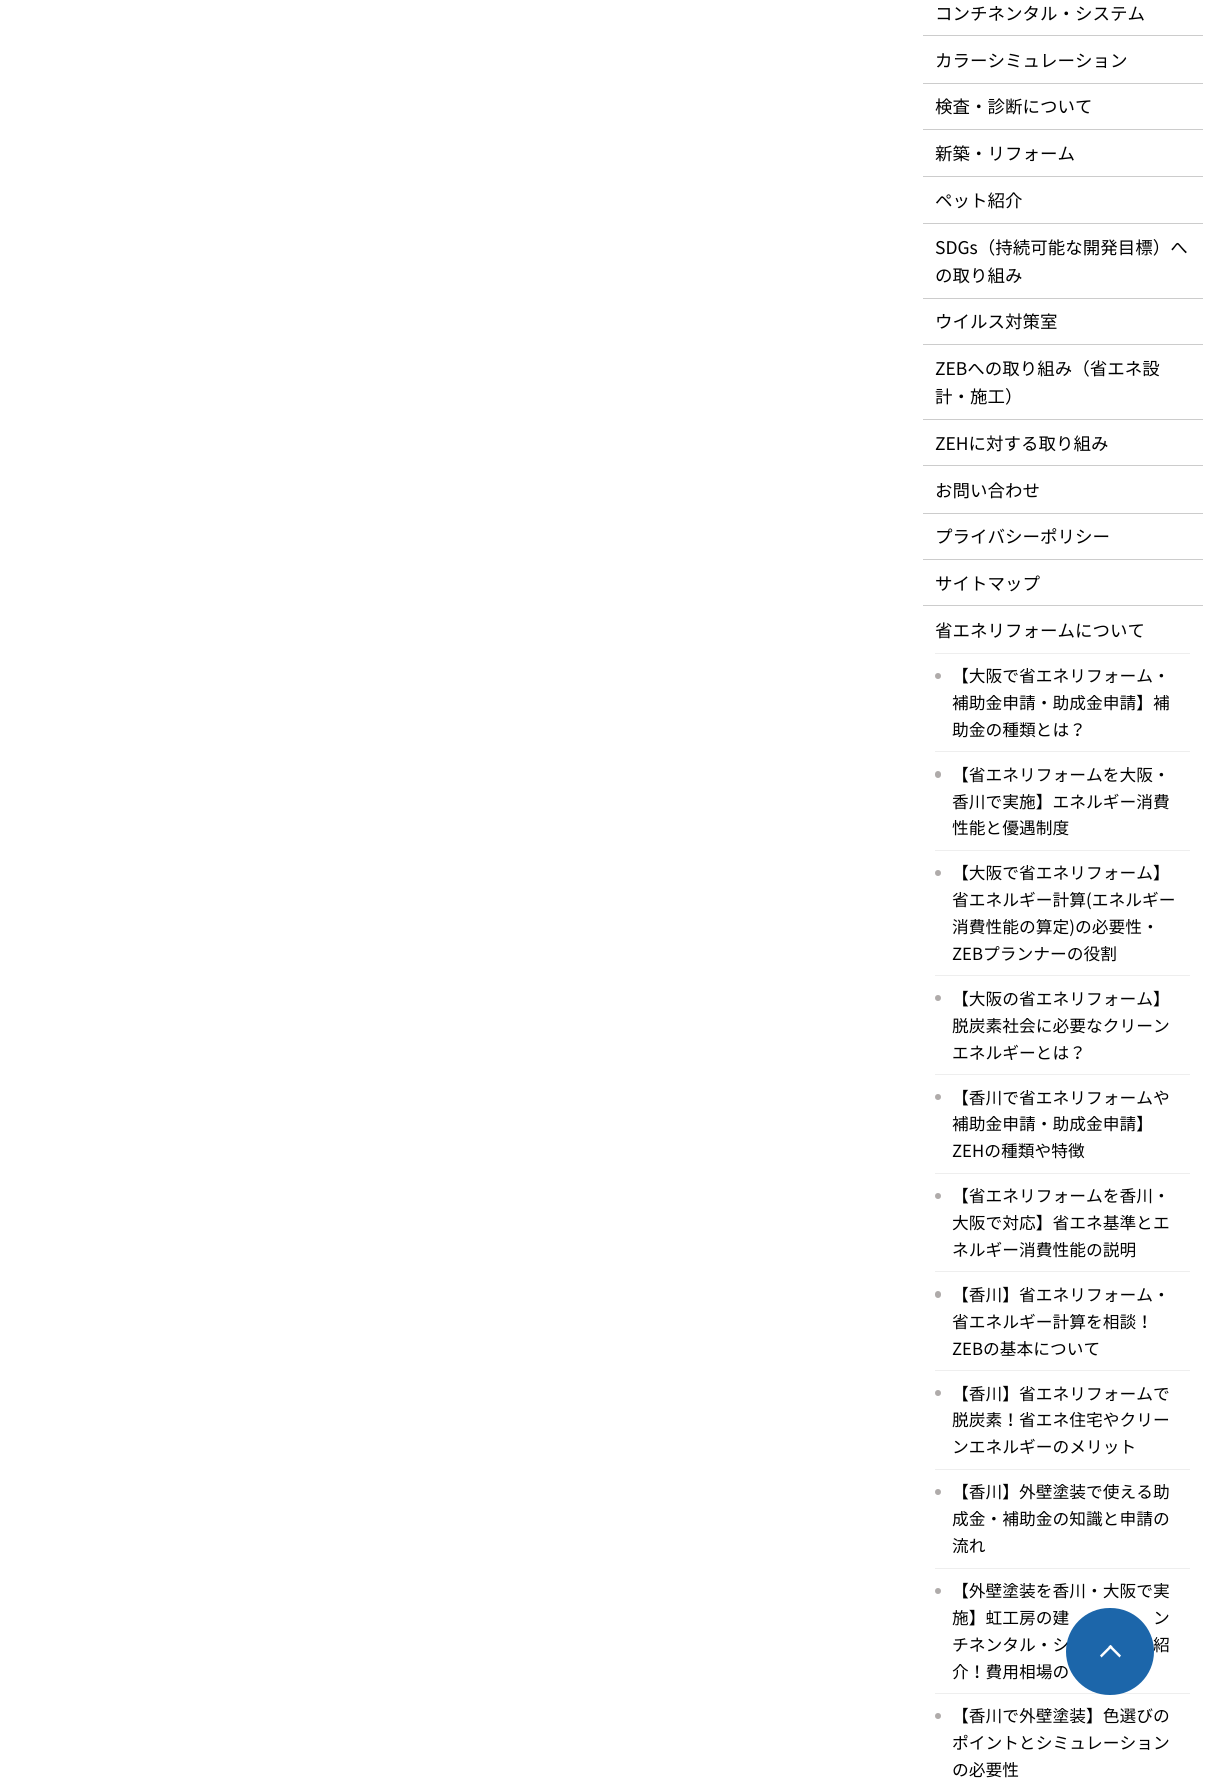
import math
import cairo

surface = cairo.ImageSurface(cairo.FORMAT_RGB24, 1214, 1789)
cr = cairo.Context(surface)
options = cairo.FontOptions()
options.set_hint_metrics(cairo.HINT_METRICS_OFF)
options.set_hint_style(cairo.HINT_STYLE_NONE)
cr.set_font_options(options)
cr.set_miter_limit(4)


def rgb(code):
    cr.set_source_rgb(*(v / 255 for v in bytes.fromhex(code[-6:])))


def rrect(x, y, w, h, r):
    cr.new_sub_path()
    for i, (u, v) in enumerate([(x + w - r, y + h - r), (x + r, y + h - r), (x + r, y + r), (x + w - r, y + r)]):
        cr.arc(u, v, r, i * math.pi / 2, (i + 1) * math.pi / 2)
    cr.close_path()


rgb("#ffffff")
cr.paint()
for x, y, w, h, color in [
    (923, 35, 280, 1, "#cccccc"),
    (923, 83, 280, 1, "#cccccc"),
    (923, 129, 280, 1, "#cccccc"),
    (923, 176, 280, 1, "#cccccc"),
    (923, 223, 280, 1, "#cccccc"),
    (923, 298, 280, 1, "#cccccc"),
    (923, 344, 280, 1, "#cccccc"),
    (923, 419, 280, 1, "#cccccc"),
    (923, 465, 280, 1, "#cccccc"),
    (923, 513, 280, 1, "#cccccc"),
    (923, 559, 280, 1, "#cccccc"),
    (923, 605, 280, 1, "#cccccc"),
    (935, 653, 255, 1, "#eeeeee"),
    (935, 751, 255, 1, "#eeeeee"),
]:
    rgb(color)
    cr.rectangle(x, y, w, h)
    cr.fill()
rgb("#afabaa")
cr.arc(938, 676, 3, 0, 2 * math.pi)
cr.fill()
rgb("#eeeeee")
cr.rectangle(935, 850, 255, 1)
cr.fill()
rgb("#afabaa")
rrect(935, 771, 6, 7, 3)
cr.fill()
rgb("#eeeeee")
cr.rectangle(935, 975, 255, 1)
cr.fill()
rgb("#afabaa")
cr.arc(938, 873, 3, 0, 2 * math.pi)
cr.fill()
rgb("#eeeeee")
cr.rectangle(935, 1074, 255, 1)
cr.fill()
rgb("#afabaa")
cr.arc(938, 998, 3, 0, 2 * math.pi)
cr.fill()
rgb("#eeeeee")
cr.rectangle(935, 1173, 255, 1)
cr.fill()
rgb("#afabaa")
cr.arc(938, 1097, 3, 0, 2 * math.pi)
cr.fill()
rgb("#eeeeee")
cr.rectangle(935, 1271, 255, 1)
cr.fill()
rgb("#afabaa")
cr.arc(938, 1196, 3, 0, 2 * math.pi)
cr.fill()
rgb("#eeeeee")
cr.rectangle(935, 1370, 255, 1)
cr.fill()
rgb("#afabaa")
rrect(935, 1291, 6, 7, 3)
cr.fill()
rgb("#eeeeee")
cr.rectangle(935, 1469, 255, 1)
cr.fill()
rgb("#afabaa")
cr.arc(938, 1393, 3, 0, 2 * math.pi)
cr.fill()
rgb("#eeeeee")
cr.rectangle(935, 1568, 255, 1)
cr.fill()
rgb("#afabaa")
cr.arc(938, 1492, 3, 0, 2 * math.pi)
cr.fill()
rgb("#eeeeee")
cr.rectangle(935, 1693, 255, 1)
cr.fill()
rgb("#afabaa")
cr.arc(938, 1591, 3, 0, 2 * math.pi)
cr.fill()
cr.arc(938, 1716, 3, 0, 2 * math.pi)
cr.fill()
cr.select_font_face("Noto Sans JP")
cr.set_font_size(17.5)
rgb("#000000")
for x, y, s in [
    (935, 20, "コンチネンタル・システム"),
    (935, 67, "カラーシミュレーション"),
    (935, 113, "検査・診断について"),
    (935, 160, "新築・リフォーム"),
    (935, 207, "ペット紹介"),
    (935, 254, "SDGs（持続可能な開発目標）へ"),
    (935, 282, "の取り組み"),
    (935, 328, "ウイルス対策室"),
    (935, 375, "ZEBへの取り組み（省エネ設"),
    (935, 403, "計・施工）"),
    (935, 450, "ZEHに対する取り組み"),
    (935, 497, "お問い合わせ"),
    (935, 543, "プライバシーポリシー"),
    (935, 590, "サイトマップ"),
    (935, 637, "省エネリフォームについて"),
]:
    cr.move_to(x, y)
    cr.show_text(s)
cr.set_font_size(16.75)
for x, y, s in [
    (952, 682, "【大阪で省エネリフォーム・"),
    (952, 709, "補助金申請・助成金申請】補"),
    (952, 736, "助金の種類とは？"),
    (952, 781, "【省エネリフォームを大阪・"),
    (952, 808, "香川で実施】エネルギー消費"),
    (952, 834, "性能と優遇制度"),
    (952, 879, "【大阪で省エネリフォーム】"),
    (952, 906, "省エネルギー計算(エネルギー"),
    (952, 933, "消費性能の算定)の必要性・"),
    (952, 960, "ZEBプランナーの役割"),
    (952, 1005, "【大阪の省エネリフォーム】"),
    (952, 1032, "脱炭素社会に必要なクリーン"),
    (952, 1059, "エネルギーとは？"),
    (952, 1104, "【香川で省エネリフォームや"),
    (952, 1130, "補助金申請・助成金申請】"),
    (952, 1157, "ZEHの種類や特徴"),
    (952, 1202, "【省エネリフォームを香川・"),
    (952, 1229, "大阪で対応】省エネ基準とエ"),
    (952, 1256, "ネルギー消費性能の説明"),
    (952, 1301, "【香川】省エネリフォーム・"),
    (952, 1328, "省エネルギー計算を相談！"),
    (952, 1355, "ZEBの基本について"),
    (952, 1400, "【香川】省エネリフォームで"),
    (952, 1426, "脱炭素！省エネ住宅やクリー"),
    (952, 1453, "ンエネルギーのメリット"),
    (952, 1498, "【香川】外壁塗装で使える助"),
    (952, 1525, "成金・補助金の知識と申請の"),
    (952, 1552, "流れ"),
    (952, 1597, "【外壁塗装を香川・大阪で実"),
    (952, 1624, "施】虹工房の建"),
    (1153, 1624, "ン"),
    (952, 1651, "チネンタル・シ"),
    (1153, 1651, "紹"),
    (952, 1678, "介！費用相場の"),
    (952, 1722, "【香川で外壁塗装】色選びの"),
    (952, 1749, "ポイントとシミュレーション"),
    (952, 1776, "の必要性"),
]:
    cr.move_to(x, y)
    cr.show_text(s)
cr.set_source_rgba(0.016, 0.337, 0.631, 0.9)
rrect(1066, 1608, 88, 87, 43.5)
cr.fill()
rgb("#ffffff")
cr.new_path()
cr.move_to(1110.5, 1645)
cr.line_to(1121, 1655.5)
cr.line_to(1119.5, 1657.5)
cr.line_to(1108.5, 1646.5)
cr.close_path()
cr.fill()
cr.new_path()
cr.move_to(1110.5, 1645)
cr.line_to(1112.5, 1646.5)
cr.line_to(1101.5, 1657.5)
cr.line_to(1100, 1655.5)
cr.close_path()
cr.fill()
surface.write_to_png("page.png")
